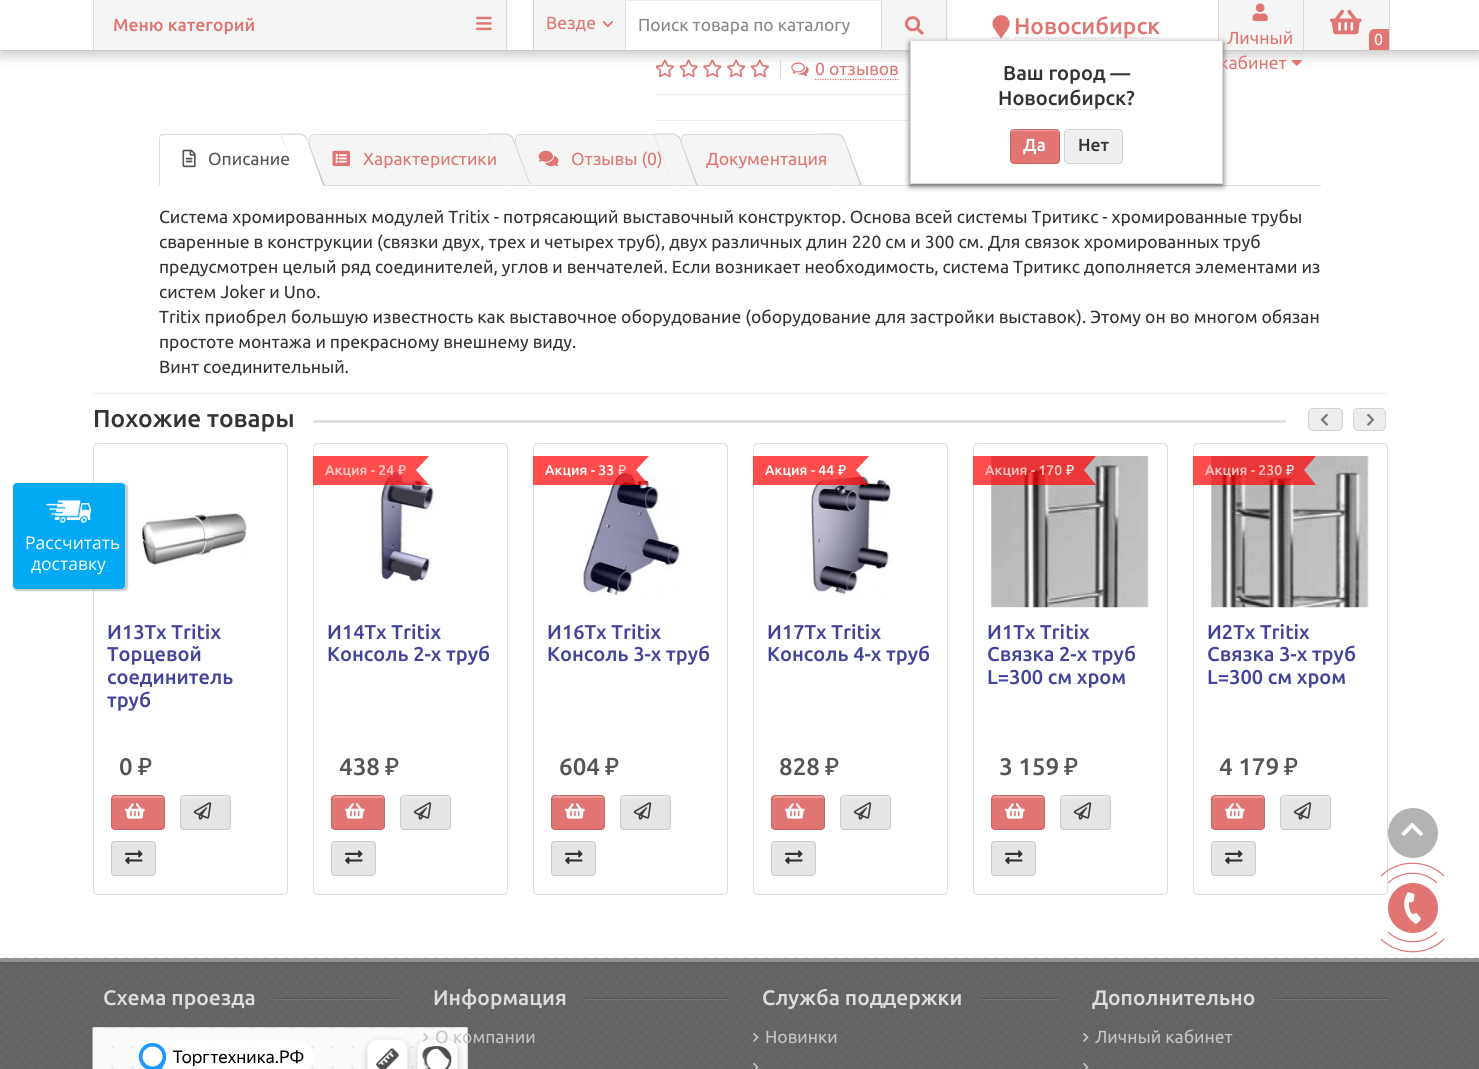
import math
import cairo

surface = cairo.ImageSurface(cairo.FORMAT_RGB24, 1479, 1069)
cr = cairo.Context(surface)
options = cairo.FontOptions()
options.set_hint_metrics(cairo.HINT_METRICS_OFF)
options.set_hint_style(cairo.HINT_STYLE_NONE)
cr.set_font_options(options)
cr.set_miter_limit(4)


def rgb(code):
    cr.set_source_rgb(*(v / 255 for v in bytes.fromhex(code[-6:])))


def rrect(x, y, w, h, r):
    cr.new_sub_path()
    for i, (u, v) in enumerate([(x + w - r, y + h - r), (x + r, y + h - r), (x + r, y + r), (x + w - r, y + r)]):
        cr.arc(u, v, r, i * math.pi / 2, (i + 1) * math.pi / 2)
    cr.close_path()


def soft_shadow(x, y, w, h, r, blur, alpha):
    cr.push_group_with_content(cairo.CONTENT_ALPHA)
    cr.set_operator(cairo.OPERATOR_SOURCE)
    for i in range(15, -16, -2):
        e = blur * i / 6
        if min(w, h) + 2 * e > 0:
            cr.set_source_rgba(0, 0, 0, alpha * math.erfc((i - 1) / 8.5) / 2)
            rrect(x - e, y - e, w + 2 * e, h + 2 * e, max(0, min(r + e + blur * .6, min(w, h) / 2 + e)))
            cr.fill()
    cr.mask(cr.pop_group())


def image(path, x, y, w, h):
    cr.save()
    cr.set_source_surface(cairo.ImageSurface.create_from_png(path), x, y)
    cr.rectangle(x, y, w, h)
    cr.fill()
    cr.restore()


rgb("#ffffff")
cr.paint()
image("img/9.png", 655, 59, 19, 19)
image("img/10.png", 679, 59, 19, 19)
image("img/11.png", 703, 59, 19, 19)
image("img/12.png", 727, 59, 19, 19)
image("img/9.png", 750, 59, 19, 19)
rgb("#dddddd")
cr.rectangle(780, 60, 1, 18)
cr.fill()
image("img/13.png", 791, 62, 18, 15)
rgb("#000000")
soft_shadow(0, 5, 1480, 51, 0, 6, 0.2)
for x, y, w, h, color in [
    (0, 0, 1479, 50, "#ffffff"),
    (0, 50, 1479, 1, "#cccccc"),
    (94, 0, 414, 50, "#f5f5f5"),
    (506, 0, 1, 50, "#dddddd"),
    (93, 0, 1, 50, "#dddddd"),
]:
    rgb(color)
    cr.rectangle(x, y, w, h)
    cr.fill()
image("img/1.png", 476, 16, 16, 15)
rgb("#f5f5f5")
cr.rectangle(534, 0, 91, 50)
cr.fill()
rgb("#d8d8d8")
cr.rectangle(533, 0, 1, 50)
cr.fill()
image("img/2.png", 602, 21, 11, 7)
for x, y, w, h, color in [
    (626, 0, 255, 1, "#ececec"),
    (625, 0, 1, 50, "#e0e0e0"),
    (882, 0, 66, 50, "#f5f5f5"),
    (946, 0, 1, 40, "#d8d8d8"),
    (881, 0, 1, 50, "#d8d8d8"),
]:
    rgb(color)
    cr.rectangle(x, y, w, h)
    cr.fill()
image("img/3.png", 905, 16, 19, 19)
cr.new_path()
cr.move_to(992.5, 38)
cr.line_to(1009, 38)
rgb("#cccccc")
cr.set_line_width(1.2)
cr.set_dash([1.25, 1.25])
cr.stroke()
image("img/4.png", 992, 15, 18, 23)
cr.new_path()
cr.move_to(1015, 38)
cr.line_to(1160, 38)
cr.stroke()
for x, y, w, h, color in [
    (1219, 0, 84, 50, "#f5f5f5"),
    (1218, 0, 1, 40, "#d8d8d8"),
    (655, 94, 255, 1, "#eeeeee"),
    (655, 120, 255, 1, "#eeeeee"),
    (861, 185, 460, 1, "#dddddd"),
]:
    rgb(color)
    cr.rectangle(x, y, w, h)
    cr.fill()
rgb("#5b5a5a")
soft_shadow(910, 43, 313, 143, 0, 3, 1)
image("img/5.png", 1252, 3, 16, 18)
image("img/6.png", 1291, 60, 11, 6)
for x, y, w, h, color in [
    (1389, 0, 1, 50, "#d9d9d9"),
    (1303, 0, 1, 50, "#d9d9d9"),
    (1304, 0, 85, 50, "#f5f5f5"),
]:
    rgb(color)
    cr.rectangle(x, y, w, h)
    cr.fill()
image("img/7.png", 1330, 9, 32, 26)
rgb("#e07572")
cr.new_path()
cr.move_to(1375, 29)
cr.line_to(1389, 29)
cr.line_to(1389, 50)
cr.line_to(1369, 50)
cr.line_to(1369, 35)
cr.curve_to(1369, 31.5, 1371.5, 29, 1375, 29)
cr.close_path()
cr.fill()
rrect(93.5, 443.5, 194, 451, 4.5)
rgb("#e0e0e0")
cr.set_line_width(1)
cr.set_dash([])
cr.stroke()
rgb("#000000")
soft_shadow(13, 483, 115, 108, 5, 0.5, 0.2)
rgb("#03a9f4")
rrect(13, 483, 112, 106, 4)
cr.fill()
image("img/8.png", 46, 500, 46, 23)
cr.new_path()
cr.move_to(815, 79.5)
cr.line_to(899, 79.5)
rgb("#e07572")
cr.set_line_width(1.2)
cr.set_dash([1.25, 1.25])
cr.stroke()
rgb("#dddddd")
cr.new_path()
cr.move_to(164, 134)
cr.curve_to(162, 134, 161, 134, 160, 135)
cr.line_to(161, 136)
cr.line_to(164, 135)
cr.line_to(299, 135)
cr.line_to(301, 136)
cr.line_to(302, 135)
cr.line_to(299, 134)
cr.close_path()
cr.fill()
cr.new_path()
cr.move_to(160, 135)
cr.curve_to(160, 136, 159, 138, 159, 139)
cr.line_to(159, 186)
cr.line_to(160, 185)
cr.line_to(160, 139)
cr.curve_to(160, 138, 160, 137, 161, 136)
cr.close_path()
cr.fill()
image("img/14.png", 182, 149, 14, 19)
rgb("#f5f5f5")
cr.new_path()
cr.move_to(314, 134.5)
cr.line_to(505, 134.5)
cr.curve_to(507.5, 134.5, 509.5, 136.5, 509.5, 139)
cr.line_to(509.5, 185.5)
cr.line_to(309.5, 185.5)
cr.line_to(309.5, 139)
cr.curve_to(309.5, 136.5, 311.5, 134.5, 314, 134.5)
cr.close_path()
cr.fill_preserve()
rgb("#dddddd")
cr.set_line_width(1)
cr.set_dash([])
cr.stroke()
image("img/15.png", 332, 150, 18, 17)
rgb("#f5f5f5")
cr.new_path()
cr.move_to(520, 134.5)
cr.line_to(671, 134.5)
cr.curve_to(673.5, 134.5, 675.5, 136.5, 675.5, 139)
cr.line_to(675.5, 185.5)
cr.line_to(515.5, 185.5)
cr.line_to(515.5, 139)
cr.curve_to(515.5, 136.5, 517.5, 134.5, 520, 134.5)
cr.close_path()
cr.fill_preserve()
rgb("#dddddd")
cr.stroke()
image("img/16.png", 538, 150, 21, 17)
rgb("#f5f5f5")
cr.new_path()
cr.move_to(686, 134.5)
cr.line_to(836, 134.5)
cr.curve_to(838.5, 134.5, 840.5, 136.5, 840.5, 139)
cr.line_to(840.5, 185.5)
cr.line_to(681.5, 185.5)
cr.line_to(681.5, 139)
cr.curve_to(681.5, 136.5, 683.5, 134.5, 686, 134.5)
cr.close_path()
cr.fill_preserve()
rgb("#dddddd")
cr.stroke()
rgb("#eeeeee")
cr.rectangle(93, 393, 1295, 1)
cr.fill()
rgb("#e0e0e0")
cr.rectangle(313, 420, 973, 3)
cr.fill()
rgb("#eeeeee")
rrect(1308, 408, 35, 23, 5)
cr.fill()
rgb("#f3f3f3")
cr.set_fill_rule(cairo.FILL_RULE_EVEN_ODD)
cr.new_path()
cr.move_to(1312, 410)
cr.line_to(1333, 410)
cr.curve_to(1338, 410, 1340, 410.5, 1341, 412.5)
cr.curve_to(1340.5, 410.5, 1339, 409, 1337, 409)
cr.line_to(1313, 409)
cr.curve_to(1311, 409, 1309, 411, 1309, 413)
cr.line_to(1309, 416)
cr.curve_to(1309, 413, 1309, 410, 1312, 410)
cr.close_path()
cr.move_to(1341, 423)
cr.line_to(1341, 426.5)
cr.close_path()
cr.move_to(1309, 426.5)
cr.line_to(1309, 426)
cr.close_path()
cr.fill()
rrect(1308.5, 408.5, 34, 22, 4.5)
cr.set_source_rgba(0, 0, 0, 0.12)
cr.stroke()
image("img/17.png", 1320, 413, 8, 13)
rgb("#eeeeee")
rrect(1353, 408, 33, 23, 5)
cr.fill()
rgb("#f3f3f3")
cr.new_path()
cr.move_to(1358, 410)
cr.line_to(1377, 410)
cr.curve_to(1383.5, 410, 1385, 411, 1385, 415)
cr.curve_to(1385, 409, 1383, 409, 1377, 409)
cr.line_to(1362, 409)
cr.curve_to(1359, 409, 1354, 408.5, 1354, 413)
cr.curve_to(1354.5, 411.5, 1355.5, 410, 1358, 410)
cr.close_path()
cr.move_to(1385, 426.5)
cr.line_to(1385, 426.5)
cr.close_path()
cr.fill()
rrect(1353.5, 408.5, 32, 22, 4.5)
cr.set_source_rgba(0, 0, 0, 0.12)
cr.stroke()
image("img/18.png", 1367, 413, 8, 13)
image("img/19.png", 142, 513, 105, 52)
rgb("#e07572")
rrect(111, 795, 54, 35, 4)
cr.fill()
rgb("#e99e9c")
cr.set_fill_rule(cairo.FILL_RULE_WINDING)
cr.new_path()
cr.move_to(115, 798)
cr.line_to(161, 798)
cr.curve_to(163, 798, 164, 799, 164, 800)
cr.curve_to(164, 794, 159, 796, 154, 796)
cr.line_to(123, 796)
cr.curve_to(122, 796, 113, 794, 113, 799)
cr.close_path()
cr.fill()
rrect(111.5, 795.5, 53, 34, 3.5)
cr.set_source_rgba(0, 0, 0, 0.12)
cr.stroke()
image("img/20.png", 125, 803, 20, 16)
rgb("#e5e5e5")
rrect(180, 795, 51, 35, 4)
cr.fill()
rgb("#ededed")
cr.new_path()
cr.move_to(184, 798)
cr.line_to(228, 798)
cr.curve_to(229, 798, 230, 799, 230, 800)
cr.curve_to(230, 794, 225, 796, 220, 796)
cr.line_to(191, 796)
cr.curve_to(186, 796, 181, 794, 181, 800)
cr.curve_to(181, 799, 182, 798, 184, 798)
cr.close_path()
cr.fill()
rrect(180.5, 795.5, 50, 34, 3.5)
cr.set_source_rgba(0, 0, 0, 0.12)
cr.stroke()
image("img/21.png", 193, 802, 19, 18)
rgb("#e5e5e5")
rrect(111, 841, 45, 35, 4)
cr.fill()
rgb("#ededed")
cr.new_path()
cr.move_to(115, 844)
cr.line_to(152, 844)
cr.curve_to(154, 844, 155, 845, 155, 846)
cr.curve_to(155, 844, 154, 843, 152, 843)
cr.line_to(116, 843)
cr.curve_to(114, 843, 114, 844, 113, 845)
cr.close_path()
cr.fill()
rrect(111.5, 841.5, 44, 34, 3.5)
cr.set_source_rgba(0, 0, 0, 0.12)
cr.stroke()
image("img/22.png", 125, 850, 18, 14)
rrect(313.5, 443.5, 194, 451, 4.5)
rgb("#e0e0e0")
cr.stroke()
image("img/23.png", 380, 470, 54, 114)
cr.set_source_rgba(1, 0, 0, 0.7)
cr.rectangle(313, 456, 93, 29)
cr.fill()
rgb("#ff4d4d")
cr.new_path()
cr.move_to(406, 456)
cr.line_to(429, 456)
cr.line_to(416, 470)
cr.line_to(406, 470)
cr.close_path()
cr.fill()
cr.set_source_rgba(1, 0, 0, 0.7)
cr.new_path()
cr.move_to(429, 485)
cr.line_to(406, 485)
cr.line_to(406, 470)
cr.line_to(416, 470)
cr.close_path()
cr.fill()
rgb("#e07572")
rrect(331, 795, 54, 35, 4)
cr.fill()
rgb("#e99e9c")
cr.new_path()
cr.move_to(335, 798)
cr.line_to(381, 798)
cr.curve_to(383, 798, 384, 799, 384, 800)
cr.curve_to(384, 794, 379, 796, 374, 796)
cr.line_to(343, 796)
cr.curve_to(342, 796, 333, 794, 333, 799)
cr.close_path()
cr.fill()
rrect(331.5, 795.5, 53, 34, 3.5)
cr.set_source_rgba(0, 0, 0, 0.12)
cr.stroke()
image("img/20.png", 345, 803, 20, 16)
rgb("#e5e5e5")
rrect(400, 795, 51, 35, 4)
cr.fill()
rgb("#ededed")
cr.new_path()
cr.move_to(404, 798)
cr.line_to(448, 798)
cr.curve_to(449, 798, 450, 799, 450, 800)
cr.curve_to(450, 794, 445, 796, 440, 796)
cr.line_to(411, 796)
cr.curve_to(406, 796, 401, 794, 401, 800)
cr.curve_to(401, 799, 402, 798, 404, 798)
cr.close_path()
cr.fill()
rrect(400.5, 795.5, 50, 34, 3.5)
cr.set_source_rgba(0, 0, 0, 0.12)
cr.stroke()
image("img/21.png", 413, 802, 19, 18)
rgb("#e5e5e5")
rrect(331, 841, 45, 35, 4)
cr.fill()
rgb("#ededed")
cr.new_path()
cr.move_to(335, 844)
cr.line_to(372, 844)
cr.curve_to(374, 844, 375, 845, 375, 846)
cr.curve_to(375, 844, 374, 843, 372, 843)
cr.line_to(336, 843)
cr.curve_to(334, 843, 334, 844, 333, 845)
cr.close_path()
cr.fill()
rrect(331.5, 841.5, 44, 34, 3.5)
cr.set_source_rgba(0, 0, 0, 0.12)
cr.stroke()
image("img/22.png", 345, 850, 18, 14)
rrect(533.5, 443.5, 194, 451, 4.5)
rgb("#e0e0e0")
cr.stroke()
image("img/24.png", 580, 471, 100, 126)
cr.set_source_rgba(1, 0, 0, 0.7)
cr.rectangle(533, 456, 93, 29)
cr.fill()
rgb("#ff4d4d")
cr.new_path()
cr.move_to(626, 456)
cr.line_to(649, 456)
cr.line_to(636, 470)
cr.line_to(626, 470)
cr.close_path()
cr.fill()
cr.set_source_rgba(1, 0, 0, 0.7)
cr.new_path()
cr.move_to(649, 485)
cr.line_to(626, 485)
cr.line_to(626, 470)
cr.line_to(636, 470)
cr.close_path()
cr.fill()
rgb("#e07572")
rrect(551, 795, 54, 35, 4)
cr.fill()
rgb("#e99e9c")
cr.new_path()
cr.move_to(555, 798)
cr.line_to(601, 798)
cr.curve_to(603, 798, 604, 799, 604, 800)
cr.curve_to(604, 794, 599, 796, 594, 796)
cr.line_to(563, 796)
cr.curve_to(562, 796, 553, 794, 553, 799)
cr.close_path()
cr.fill()
rrect(551.5, 795.5, 53, 34, 3.5)
cr.set_source_rgba(0, 0, 0, 0.12)
cr.stroke()
image("img/20.png", 565, 803, 20, 16)
rgb("#e5e5e5")
rrect(620, 795, 51, 35, 4)
cr.fill()
rgb("#ededed")
cr.new_path()
cr.move_to(624, 798)
cr.line_to(668, 798)
cr.curve_to(669, 798, 670, 799, 670, 800)
cr.curve_to(670, 794, 665, 796, 660, 796)
cr.line_to(631, 796)
cr.curve_to(626, 796, 621, 794, 621, 800)
cr.curve_to(621, 799, 622, 798, 624, 798)
cr.close_path()
cr.fill()
rrect(620.5, 795.5, 50, 34, 3.5)
cr.set_source_rgba(0, 0, 0, 0.12)
cr.stroke()
image("img/21.png", 633, 802, 19, 18)
rgb("#e5e5e5")
rrect(551, 841, 45, 35, 4)
cr.fill()
rgb("#ededed")
cr.new_path()
cr.move_to(555, 844)
cr.line_to(592, 844)
cr.curve_to(594, 844, 595, 845, 595, 846)
cr.curve_to(595, 844, 594, 843, 592, 843)
cr.line_to(556, 843)
cr.curve_to(554, 843, 554, 844, 553, 845)
cr.close_path()
cr.fill()
rrect(551.5, 841.5, 44, 34, 3.5)
cr.set_source_rgba(0, 0, 0, 0.12)
cr.stroke()
image("img/22.png", 565, 850, 18, 14)
rrect(753.5, 443.5, 194, 451, 4.5)
rgb("#e0e0e0")
cr.stroke()
image("img/25.png", 810, 476, 83, 121)
cr.set_source_rgba(1, 0, 0, 0.7)
cr.rectangle(753, 456, 93, 29)
cr.fill()
rgb("#ff4d4d")
cr.new_path()
cr.move_to(846, 456)
cr.line_to(869, 456)
cr.line_to(856, 470)
cr.line_to(846, 470)
cr.close_path()
cr.fill()
cr.set_source_rgba(1, 0, 0, 0.7)
cr.new_path()
cr.move_to(869, 485)
cr.line_to(846, 485)
cr.line_to(846, 470)
cr.line_to(856, 470)
cr.close_path()
cr.fill()
rgb("#e07572")
rrect(771, 795, 54, 35, 4)
cr.fill()
rgb("#e99e9c")
cr.new_path()
cr.move_to(775, 798)
cr.line_to(821, 798)
cr.curve_to(823, 798, 824, 799, 824, 800)
cr.curve_to(824, 794, 819, 796, 814, 796)
cr.line_to(783, 796)
cr.curve_to(782, 796, 773, 794, 773, 799)
cr.close_path()
cr.fill()
rrect(771.5, 795.5, 53, 34, 3.5)
cr.set_source_rgba(0, 0, 0, 0.12)
cr.stroke()
image("img/20.png", 785, 803, 20, 16)
rgb("#e5e5e5")
rrect(840, 795, 51, 35, 4)
cr.fill()
rgb("#ededed")
cr.new_path()
cr.move_to(844, 798)
cr.line_to(888, 798)
cr.curve_to(889, 798, 890, 799, 890, 800)
cr.curve_to(890, 794, 885, 796, 880, 796)
cr.line_to(851, 796)
cr.curve_to(846, 796, 841, 794, 841, 800)
cr.curve_to(841, 799, 842, 798, 844, 798)
cr.close_path()
cr.fill()
rrect(840.5, 795.5, 50, 34, 3.5)
cr.set_source_rgba(0, 0, 0, 0.12)
cr.stroke()
image("img/21.png", 853, 802, 19, 18)
rgb("#e5e5e5")
rrect(771, 841, 45, 35, 4)
cr.fill()
rgb("#ededed")
cr.new_path()
cr.move_to(775, 844)
cr.line_to(812, 844)
cr.curve_to(814, 844, 815, 845, 815, 846)
cr.curve_to(815, 844, 814, 843, 812, 843)
cr.line_to(776, 843)
cr.curve_to(774, 843, 774, 844, 773, 845)
cr.close_path()
cr.fill()
rrect(771.5, 841.5, 44, 34, 3.5)
cr.set_source_rgba(0, 0, 0, 0.12)
cr.stroke()
image("img/22.png", 785, 850, 18, 14)
rrect(973.5, 443.5, 194, 451, 4.5)
rgb("#e0e0e0")
cr.stroke()
image("img/26.png", 991, 456, 158, 152)
cr.set_source_rgba(1, 0, 0, 0.7)
cr.rectangle(973, 456, 101, 29)
cr.fill()
cr.new_path()
cr.move_to(1074, 456)
cr.line_to(1096, 456)
cr.line_to(1084, 470)
cr.line_to(1074, 470)
cr.close_path()
cr.move_to(1096, 485)
cr.line_to(1074, 485)
cr.line_to(1074, 470)
cr.line_to(1084, 470)
cr.close_path()
cr.fill()
rgb("#e07572")
rrect(991, 795, 54, 35, 4)
cr.fill()
rgb("#e99e9c")
cr.new_path()
cr.move_to(995, 798)
cr.line_to(1041, 798)
cr.curve_to(1043, 798, 1044, 799, 1044, 800)
cr.curve_to(1044, 794, 1039, 796, 1034, 796)
cr.line_to(1003, 796)
cr.curve_to(1002, 796, 993, 794, 993, 799)
cr.close_path()
cr.fill()
rrect(991.5, 795.5, 53, 34, 3.5)
cr.set_source_rgba(0, 0, 0, 0.12)
cr.stroke()
image("img/20.png", 1005, 803, 20, 16)
rgb("#e5e5e5")
rrect(1060, 795, 51, 35, 4)
cr.fill()
rgb("#ededed")
cr.new_path()
cr.move_to(1064, 798)
cr.line_to(1108, 798)
cr.curve_to(1109, 798, 1110, 799, 1110, 800)
cr.curve_to(1110, 794, 1105, 796, 1100, 796)
cr.line_to(1071, 796)
cr.curve_to(1066, 796, 1061, 794, 1061, 800)
cr.curve_to(1061, 799, 1062, 798, 1064, 798)
cr.close_path()
cr.fill()
rrect(1060.5, 795.5, 50, 34, 3.5)
cr.set_source_rgba(0, 0, 0, 0.12)
cr.stroke()
image("img/21.png", 1073, 802, 19, 18)
rgb("#e5e5e5")
rrect(991, 841, 45, 35, 4)
cr.fill()
rgb("#ededed")
cr.new_path()
cr.move_to(995, 844)
cr.line_to(1032, 844)
cr.curve_to(1034, 844, 1035, 845, 1035, 846)
cr.curve_to(1035, 844, 1034, 843, 1032, 843)
cr.line_to(996, 843)
cr.curve_to(994, 843, 994, 844, 993, 845)
cr.close_path()
cr.fill()
rrect(991.5, 841.5, 44, 34, 3.5)
cr.set_source_rgba(0, 0, 0, 0.12)
cr.stroke()
image("img/22.png", 1005, 850, 18, 14)
rrect(1193.5, 443.5, 194, 451, 4.5)
rgb("#e0e0e0")
cr.stroke()
image("img/27.png", 1211, 456, 158, 152)
cr.set_source_rgba(1, 0, 0, 0.7)
cr.rectangle(1193, 456, 101, 29)
cr.fill()
cr.new_path()
cr.move_to(1294, 456)
cr.line_to(1316, 456)
cr.line_to(1304, 470)
cr.line_to(1294, 470)
cr.close_path()
cr.move_to(1316, 485)
cr.line_to(1294, 485)
cr.line_to(1294, 470)
cr.line_to(1304, 470)
cr.close_path()
cr.fill()
rgb("#e07572")
rrect(1211, 795, 54, 35, 4)
cr.fill()
rgb("#e99e9c")
cr.new_path()
cr.move_to(1215, 798)
cr.line_to(1261, 798)
cr.curve_to(1263, 798, 1264, 799, 1264, 800)
cr.curve_to(1264, 794, 1259, 796, 1254, 796)
cr.line_to(1223, 796)
cr.curve_to(1222, 796, 1213, 794, 1213, 799)
cr.close_path()
cr.fill()
rrect(1211.5, 795.5, 53, 34, 3.5)
cr.set_source_rgba(0, 0, 0, 0.12)
cr.stroke()
image("img/20.png", 1225, 803, 20, 16)
rgb("#e5e5e5")
rrect(1280, 795, 51, 35, 4)
cr.fill()
rgb("#ededed")
cr.new_path()
cr.move_to(1284, 798)
cr.line_to(1328, 798)
cr.curve_to(1329, 798, 1330, 799, 1330, 800)
cr.curve_to(1330, 794, 1325, 796, 1320, 796)
cr.line_to(1291, 796)
cr.curve_to(1286, 796, 1281, 794, 1281, 800)
cr.curve_to(1281, 799, 1282, 798, 1284, 798)
cr.close_path()
cr.fill()
rrect(1280.5, 795.5, 50, 34, 3.5)
cr.set_source_rgba(0, 0, 0, 0.12)
cr.stroke()
image("img/21.png", 1293, 802, 19, 18)
rgb("#e5e5e5")
rrect(1211, 841, 45, 35, 4)
cr.fill()
rgb("#ededed")
cr.new_path()
cr.move_to(1215, 844)
cr.line_to(1252, 844)
cr.curve_to(1254, 844, 1255, 845, 1255, 846)
cr.curve_to(1255, 844, 1254, 843, 1252, 843)
cr.line_to(1216, 843)
cr.curve_to(1214, 843, 1214, 844, 1213, 845)
cr.close_path()
cr.fill()
rrect(1211.5, 841.5, 44, 34, 3.5)
cr.set_source_rgba(0, 0, 0, 0.12)
cr.stroke()
image("img/22.png", 1225, 850, 18, 14)
rgb("#b3b3b3")
cr.arc(1413, 833, 25, 0, 2 * math.pi)
cr.fill()
image("img/28.png", 1401, 823, 22, 13)
rgb("#e07572")
cr.arc(1413, 908, 25, 0, 2 * math.pi)
cr.fill()
cr.new_path()
cr.move_to(1388, 883)
cr.curve_to(1401.5, 870, 1423.5, 870, 1437, 883)
cr.set_line_width(1.2)
cr.stroke()
cr.new_path()
cr.move_to(1381, 876)
cr.curve_to(1398, 859, 1427, 859, 1444, 876)
cr.stroke()
cr.new_path()
cr.move_to(1437, 932)
cr.curve_to(1423.5, 945, 1401.5, 945, 1388, 932)
cr.stroke()
cr.new_path()
cr.move_to(1444, 939)
cr.curve_to(1427, 956, 1398, 956, 1381, 939)
cr.stroke()
image("img/29.png", 1404, 892, 17, 32)
rgb("#656565")
cr.rectangle(0, 958, 1479, 111)
cr.fill()
image("img/30.png", 0, 957, 1478, 112)
cr.set_source_rgba(1, 1, 1, 0.3)
cr.rectangle(0, 958, 1479, 4)
cr.fill()
cr.set_source_rgba(0, 0, 0, 0.15)
cr.rectangle(274, 998, 124, 1)
cr.fill()
rgb("#747474")
cr.rectangle(274, 999, 124, 1)
cr.fill()
image("img/31.png", 92, 1027, 376, 42)
cr.set_source_rgba(0, 0, 0, 0.15)
cr.rectangle(585, 998, 143, 1)
cr.fill()
rgb("#747474")
cr.rectangle(585, 999, 143, 1)
cr.fill()
image("img/32.png", 423, 1033, 6, 9)
image("img/33.png", 423, 1063, 6, 6)
cr.set_source_rgba(0, 0, 0, 0.15)
cr.rectangle(981, 998, 77, 1)
cr.fill()
rgb("#747474")
cr.rectangle(981, 999, 77, 1)
cr.fill()
image("img/34.png", 753, 1033, 6, 9)
image("img/35.png", 753, 1063, 6, 6)
cr.set_source_rgba(0, 0, 0, 0.15)
cr.rectangle(1274, 998, 114, 1)
cr.fill()
rgb("#747474")
cr.rectangle(1274, 999, 114, 1)
cr.fill()
image("img/36.png", 1083, 1033, 6, 9)
image("img/37.png", 1083, 1063, 6, 6)
cr.select_font_face("Ubuntu Medium")
cr.set_font_size(17.5)
rgb("#e07572")
cr.move_to(113, 31)
cr.show_text("Меню категорий")
cr.select_font_face("Ubuntu")
cr.move_to(546, 29)
cr.show_text("Везде")
rgb("#888888")
cr.move_to(638, 31)
cr.show_text("Поиск товара по каталогу")
cr.select_font_face("Ubuntu Medium")
cr.set_font_size(22.75)
rgb("#e07572")
cr.move_to(1014, 34)
cr.show_text("Новосибирск")
cr.select_font_face("Ubuntu")
cr.set_font_size(17.5)
cr.move_to(1227, 44)
cr.show_text("Личный")
cr.move_to(1219, 69)
cr.show_text("кабинет")
rgb("#ffffff")
cr.rectangle(910.5, 40.5, 312, 143)
cr.fill_preserve()
rgb("#dadada")
cr.set_line_width(1)
cr.stroke()
rgb("#efefef")
rrect(1064, 129, 59, 35, 4)
cr.fill()
rgb("#f4f4f4")
cr.new_path()
cr.move_to(1068, 131)
cr.line_to(1119, 131)
cr.curve_to(1120, 131, 1121, 132, 1121, 134)
cr.curve_to(1121, 128, 1115, 130, 1110, 130)
cr.line_to(1076, 130)
cr.curve_to(1071, 130, 1065, 128, 1065, 134)
cr.curve_to(1065, 132, 1066, 131, 1068, 131)
cr.close_path()
cr.fill()
rrect(1064.5, 129.5, 58, 34, 3.5)
cr.set_source_rgba(0, 0, 0, 0.12)
cr.stroke()
cr.select_font_face("Ubuntu Medium")
rgb("#333333")
cr.move_to(1078, 151)
cr.show_text("Нет")
rgb("#e07572")
rrect(1010, 129, 50, 35, 4)
cr.fill()
rgb("#e99e9c")
cr.new_path()
cr.move_to(1014, 131)
cr.line_to(1056, 131)
cr.curve_to(1058, 131, 1059, 132, 1059, 134)
cr.curve_to(1059, 128, 1054, 130, 1049, 130)
cr.line_to(1021, 130)
cr.curve_to(1016, 130, 1011, 128, 1011, 134)
cr.curve_to(1011, 132, 1012, 131, 1014, 131)
cr.close_path()
cr.fill()
rrect(1010.5, 129.5, 49, 34, 3.5)
cr.set_source_rgba(0, 0, 0, 0.12)
cr.stroke()
rgb("#ffffff")
cr.move_to(1023, 151)
cr.show_text("Да")
cr.new_path()
cr.move_to(997.5, 109.5)
cr.line_to(1126, 109.5)
rgb("#cccccc")
cr.set_line_width(1.2)
cr.set_dash([1.25, 1.25])
cr.stroke()
cr.set_font_size(20)
rgb("#333333")
cr.move_to(998, 105)
cr.show_text("Новосибирск?")
cr.move_to(1003, 80)
cr.show_text("Ваш город —")
cr.select_font_face("Ubuntu")
cr.set_font_size(16)
rgb("#ffffff")
cr.move_to(1374, 45)
cr.show_text("0")
cr.select_font_face("Open Sans")
cr.set_font_size(17.5)
cr.move_to(25, 549)
cr.show_text("Рассчитать")
cr.move_to(31, 570)
cr.show_text("доставку")
cr.select_font_face("Ubuntu")
rgb("#e07572")
cr.move_to(815, 75)
cr.show_text("0 отзывов")
rgb("#555555")
cr.move_to(208, 165)
cr.show_text("Описание")
rgb("#ffffff")
cr.new_path()
cr.move_to(281, 133)
cr.line_to(299, 133)
cr.curve_to(303, 133, 307, 136, 308, 140)
cr.line_to(325, 186)
cr.line_to(300, 186)
cr.close_path()
cr.fill()
rgb("#dddddd")
cr.set_fill_rule(cairo.FILL_RULE_EVEN_ODD)
cr.new_path()
cr.move_to(284.5, 144.5)
cr.line_to(281, 135)
cr.line_to(281.5, 135)
cr.line_to(290.5, 159.5)
cr.line_to(290, 159.5)
cr.close_path()
cr.move_to(303.5, 136.5)
cr.curve_to(302.5, 135.5, 301, 135, 300, 135)
cr.line_to(281.5, 135)
cr.line_to(281, 133.5)
cr.line_to(301.5, 133.5)
cr.line_to(304.5, 135)
cr.close_path()
cr.fill()
rgb("#cccccc")
cr.set_fill_rule(cairo.FILL_RULE_WINDING)
cr.new_path()
cr.move_to(323, 186)
cr.line_to(307, 140)
cr.curve_to(306, 138, 305, 137, 304, 136)
cr.line_to(305, 135)
cr.line_to(307, 138)
cr.line_to(325, 186)
cr.close_path()
cr.fill()
rgb("#e07572")
cr.move_to(363, 165)
cr.show_text("Характеристики")
rgb("#f5f5f5")
cr.new_path()
cr.move_to(487, 133)
cr.line_to(506, 133)
cr.curve_to(509, 133, 513, 136, 514, 140)
cr.line_to(531, 186)
cr.line_to(506, 186)
cr.close_path()
cr.fill()
rgb("#dddddd")
cr.new_path()
cr.move_to(488, 135)
cr.line_to(497, 159.5)
cr.line_to(487, 133.5)
cr.line_to(508, 133.5)
cr.curve_to(509, 134, 510, 134.5, 511, 135)
cr.line_to(510.5, 136.5)
cr.curve_to(509, 135.5, 507.5, 135, 506, 135)
cr.close_path()
cr.fill()
rgb("#cccccc")
cr.new_path()
cr.move_to(511, 135)
cr.curve_to(512, 136, 514, 138, 514, 140)
cr.line_to(531, 186)
cr.line_to(530, 185)
cr.line_to(513, 140)
cr.curve_to(513, 139, 512, 137, 510, 136)
cr.close_path()
cr.fill()
rgb("#dddddd")
cr.new_path()
cr.move_to(531, 185.5)
cr.line_to(531, 186)
cr.line_to(506.5, 186)
cr.line_to(497, 159.5)
cr.line_to(506, 185)
cr.line_to(530, 185)
cr.close_path()
cr.fill()
rgb("#e07572")
cr.move_to(571, 165)
cr.show_text("Отзывы (0)")
rgb("#f5f5f5")
cr.new_path()
cr.move_to(654, 133)
cr.line_to(672, 133)
cr.curve_to(676, 133, 680, 136, 681, 140)
cr.line_to(698, 186)
cr.line_to(673, 186)
cr.close_path()
cr.fill()
rgb("#dddddd")
cr.set_fill_rule(cairo.FILL_RULE_EVEN_ODD)
cr.new_path()
cr.move_to(674.5, 133.5)
cr.line_to(677.5, 135)
cr.line_to(677, 136)
cr.curve_to(675.5, 135.5, 674.5, 135, 673, 135)
cr.line_to(654.5, 135)
cr.line_to(654, 133.5)
cr.close_path()
cr.move_to(663.5, 159.5)
cr.line_to(663, 159.5)
cr.line_to(654, 135)
cr.line_to(654.5, 135)
cr.close_path()
cr.fill()
rgb("#cccccc")
cr.set_fill_rule(cairo.FILL_RULE_WINDING)
cr.new_path()
cr.move_to(678, 135)
cr.line_to(680, 138)
cr.line_to(698, 186)
cr.line_to(696, 185)
cr.line_to(680, 140)
cr.curve_to(679, 138, 678, 137, 677, 136)
cr.close_path()
cr.fill()
rgb("#dddddd")
cr.new_path()
cr.move_to(697.5, 186)
cr.line_to(696, 184.5)
cr.line_to(696, 185)
cr.line_to(672.5, 185)
cr.line_to(663.5, 159.5)
cr.line_to(663, 159.5)
cr.line_to(672.5, 185)
cr.line_to(673, 186)
cr.close_path()
cr.fill()
rgb("#e07572")
cr.move_to(706, 165)
cr.show_text("Документация")
rgb("#f5f5f5")
cr.new_path()
cr.move_to(817, 133)
cr.line_to(836, 133)
cr.curve_to(840, 133, 844, 136, 845, 140)
cr.line_to(862, 186)
cr.line_to(837, 186)
cr.close_path()
cr.fill()
rgb("#dddddd")
cr.set_fill_rule(cairo.FILL_RULE_EVEN_ODD)
cr.new_path()
cr.move_to(817.5, 133.5)
cr.line_to(838.5, 133.5)
cr.line_to(841.5, 135)
cr.line_to(840.5, 136.5)
cr.curve_to(839.5, 135.5, 838, 135, 837, 135)
cr.line_to(818, 135)
cr.close_path()
cr.move_to(826.5, 158.5)
cr.line_to(827, 159.5)
cr.close_path()
cr.fill()
rgb("#cccccc")
cr.set_fill_rule(cairo.FILL_RULE_WINDING)
cr.new_path()
cr.move_to(842, 135)
cr.line_to(844, 138)
cr.line_to(862, 186)
cr.line_to(860, 185)
cr.line_to(844, 140)
cr.curve_to(843, 138, 842, 137, 841, 136)
cr.close_path()
cr.fill()
rgb("#dddddd")
cr.new_path()
cr.move_to(861.5, 186)
cr.line_to(860, 184.5)
cr.line_to(860, 185)
cr.line_to(836.5, 185)
cr.line_to(827, 159.5)
cr.line_to(836.5, 185)
cr.line_to(837, 186)
cr.close_path()
cr.fill()
rgb("#333333")
for x, y, s in [
    (159, 223, "Система хромированных модулей Tritix - потрясающий выставочный конструктор. Основа всей системы Тритикс - хромированные трубы"),
    (159, 248, "сваренные в конструкции (связки двух, трех и четырех труб), двух различных длин 220 см и 300 см. Для связок хромированных труб"),
    (159, 273, "предусмотрен целый ряд соединителей, углов и венчателей. Если возникает необходимость, система Тритикс дополняется элементами из"),
    (159, 298, "систем Joker и Uno."),
    (159, 323, "Tritix приобрел большую известность как выставочное оборудование (оборудование для застройки выставок). Этому он во многом обязан"),
    (159, 348, "простоте монтажа и прекрасному внешнему виду."),
    (159, 373, "Винт соединительный."),
]:
    cr.move_to(x, y)
    cr.show_text(s)
cr.select_font_face("Ubuntu Medium")
cr.set_font_size(24.5)
cr.move_to(93, 427)
cr.show_text("Похожие товары")
cr.set_font_size(20)
rgb("#43439b")
for x, y, s in [
    (107, 639, "И13Tx Tritix"),
    (107, 661, "Торцевой"),
    (107, 684, "соединитель"),
    (107, 707, "труб"),
]:
    cr.move_to(x, y)
    cr.show_text(s)
cr.set_font_size(24)
rgb("#555555")
cr.move_to(119, 775)
cr.show_text("0")
cr.select_font_face("Noto Sans Medium")
cr.move_to(138, 775)
cr.show_text("₽")
cr.select_font_face("Ubuntu Medium")
cr.set_font_size(14)
rgb("#ffc9c9")
cr.move_to(325, 475)
cr.show_text("Акция - 24")
cr.select_font_face("Noto Sans Medium")
cr.move_to(398, 475)
cr.show_text("₽")
cr.select_font_face("Ubuntu Medium")
cr.set_font_size(20)
rgb("#43439b")
cr.move_to(327, 639)
cr.show_text("И14Tx Tritix")
cr.move_to(327, 661)
cr.show_text("Консоль 2-х труб")
cr.set_font_size(24)
rgb("#555555")
cr.move_to(339, 775)
cr.show_text("438")
cr.select_font_face("Noto Sans Medium")
cr.move_to(385, 775)
cr.show_text("₽")
cr.select_font_face("Ubuntu Medium")
cr.set_font_size(14)
rgb("#ffffff")
cr.move_to(545, 475)
cr.show_text("Акция - 33")
cr.select_font_face("Noto Sans Medium")
rgb("#ffc9c9")
cr.move_to(618, 475)
cr.show_text("₽")
cr.select_font_face("Ubuntu Medium")
cr.set_font_size(20)
rgb("#43439b")
cr.move_to(547, 639)
cr.show_text("И16Tx Tritix")
cr.move_to(547, 661)
cr.show_text("Консоль 3-х труб")
cr.set_font_size(24)
rgb("#555555")
cr.move_to(559, 775)
cr.show_text("604")
cr.select_font_face("Noto Sans Medium")
cr.move_to(605, 775)
cr.show_text("₽")
cr.select_font_face("Ubuntu Medium")
cr.set_font_size(14)
rgb("#ffffff")
cr.move_to(765, 475)
cr.show_text("Акция - 44")
cr.select_font_face("Noto Sans Medium")
cr.move_to(838, 475)
cr.show_text("₽")
cr.select_font_face("Ubuntu Medium")
cr.set_font_size(20)
rgb("#43439b")
cr.move_to(767, 639)
cr.show_text("И17Tx Tritix")
cr.move_to(767, 661)
cr.show_text("Консоль 4-х труб")
cr.set_font_size(24)
rgb("#555555")
cr.move_to(779, 775)
cr.show_text("828")
cr.select_font_face("Noto Sans Medium")
cr.move_to(825, 775)
cr.show_text("₽")
cr.select_font_face("Ubuntu Medium")
cr.set_font_size(14)
rgb("#f8c3c3")
cr.move_to(985, 475)
cr.show_text("Акция - 170")
cr.select_font_face("Noto Sans Medium")
rgb("#eaeaea")
cr.move_to(1066, 475)
cr.show_text("₽")
cr.select_font_face("Ubuntu Medium")
cr.set_font_size(20)
rgb("#43439b")
for x, y, s in [
    (987, 639, "И1Tx Tritix"),
    (987, 661, "Связка 2-х труб"),
    (987, 684, "L=300 см хром"),
]:
    cr.move_to(x, y)
    cr.show_text(s)
cr.set_font_size(24)
rgb("#555555")
cr.move_to(999, 775)
cr.show_text("3 159")
cr.select_font_face("Noto Sans Medium")
cr.move_to(1064, 775)
cr.show_text("₽")
cr.select_font_face("Ubuntu Medium")
cr.set_font_size(14)
rgb("#f8c3c3")
cr.move_to(1205, 475)
cr.show_text("Акция - 230")
cr.select_font_face("Noto Sans Medium")
rgb("#eaeaea")
cr.move_to(1286, 475)
cr.show_text("₽")
cr.select_font_face("Ubuntu Medium")
cr.set_font_size(20)
rgb("#43439b")
for x, y, s in [
    (1207, 639, "И2Tx Tritix"),
    (1207, 661, "Связка 3-х труб"),
    (1207, 684, "L=300 см хром"),
]:
    cr.move_to(x, y)
    cr.show_text(s)
cr.set_font_size(24)
rgb("#555555")
cr.move_to(1219, 775)
cr.show_text("4 179")
cr.select_font_face("Noto Sans Medium")
cr.move_to(1284, 775)
cr.show_text("₽")
cr.select_font_face("Ubuntu Medium")
cr.set_font_size(21)
rgb("#dddddd")
cr.move_to(103, 1005)
cr.show_text("Схема проезда")
cr.move_to(433, 1005)
cr.show_text("Информация")
cr.select_font_face("Ubuntu")
cr.set_font_size(17.5)
rgb("#c5c5c5")
cr.move_to(435, 1043)
cr.show_text("О компании")
cr.select_font_face("Ubuntu Medium")
cr.set_font_size(21)
rgb("#dddddd")
cr.move_to(762, 1005)
cr.show_text("Служба поддержки")
cr.select_font_face("Ubuntu")
cr.set_font_size(17.5)
rgb("#c5c5c5")
cr.move_to(765, 1043)
cr.show_text("Новинки")
cr.select_font_face("Ubuntu Medium")
cr.set_font_size(21)
rgb("#dddddd")
cr.move_to(1092, 1005)
cr.show_text("Дополнительно")
cr.select_font_face("Ubuntu")
cr.set_font_size(17.5)
rgb("#c5c5c5")
cr.move_to(1095, 1043)
cr.show_text("Личный кабинет")
surface.write_to_png("page.png")
